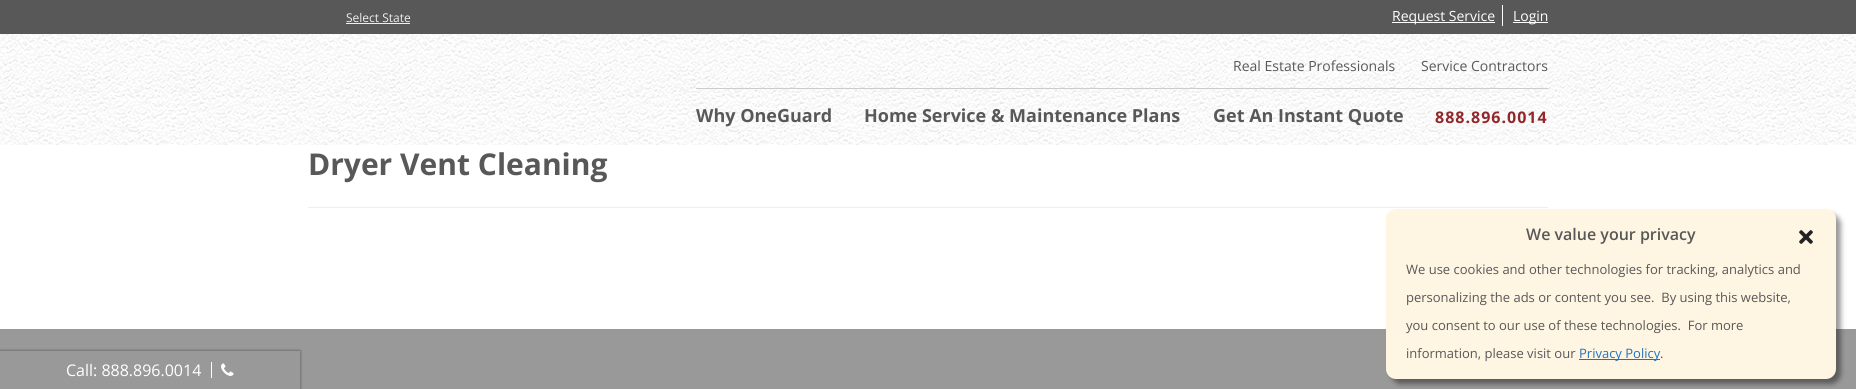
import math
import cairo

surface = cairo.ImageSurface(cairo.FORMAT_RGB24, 1856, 389)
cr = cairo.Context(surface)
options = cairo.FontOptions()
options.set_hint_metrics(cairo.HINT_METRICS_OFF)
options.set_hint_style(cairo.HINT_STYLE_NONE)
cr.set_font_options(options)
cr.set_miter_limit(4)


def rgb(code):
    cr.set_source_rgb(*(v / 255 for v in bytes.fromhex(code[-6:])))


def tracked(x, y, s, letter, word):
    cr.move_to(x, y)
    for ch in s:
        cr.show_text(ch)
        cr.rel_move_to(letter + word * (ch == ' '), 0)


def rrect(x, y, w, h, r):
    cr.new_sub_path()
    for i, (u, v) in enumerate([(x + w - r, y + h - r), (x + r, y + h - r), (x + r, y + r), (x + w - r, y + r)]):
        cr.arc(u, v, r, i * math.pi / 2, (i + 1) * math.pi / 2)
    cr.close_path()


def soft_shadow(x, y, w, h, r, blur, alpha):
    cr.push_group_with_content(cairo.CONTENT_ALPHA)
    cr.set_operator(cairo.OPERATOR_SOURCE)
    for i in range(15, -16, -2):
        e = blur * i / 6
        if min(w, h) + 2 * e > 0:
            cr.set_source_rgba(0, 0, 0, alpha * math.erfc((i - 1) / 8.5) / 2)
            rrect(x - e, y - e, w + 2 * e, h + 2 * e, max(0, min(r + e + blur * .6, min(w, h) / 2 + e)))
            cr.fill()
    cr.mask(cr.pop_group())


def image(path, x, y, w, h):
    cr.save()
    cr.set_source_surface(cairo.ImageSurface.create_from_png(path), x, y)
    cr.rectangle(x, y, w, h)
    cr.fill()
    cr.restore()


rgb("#999999")
cr.paint()
for x, y, w, h, color in [
    (0, 0, 1856, 34, "#585858"),
    (346, 23, 64, 1, "#eeeeee"),
    (1502, 5, 1, 21, "#ffffff"),
    (1392, 22, 103, 1, "#ffffff"),
    (1513, 22, 35, 1, "#ffffff"),
]:
    rgb(color)
    cr.rectangle(x, y, w, h)
    cr.fill()
image("img/1.png", 0, 34, 1856, 111)
for x, y, w, h, color in [
    (696, 88, 852, 1, "#cccccc"),
    (0, 145, 1856, 184, "#ffffff"),
    (308, 207, 1240, 1, "#eeeeee"),
]:
    rgb(color)
    cr.rectangle(x, y, w, h)
    cr.fill()
cr.save()
cr.set_fill_rule(cairo.FILL_RULE_EVEN_ODD)
cr.new_path()
cr.move_to(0, 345)
cr.line_to(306, 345)
cr.line_to(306, 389)
cr.line_to(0, 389)
cr.close_path()
cr.move_to(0, 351)
cr.line_to(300, 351)
cr.line_to(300, 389)
cr.line_to(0, 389)
cr.close_path()
cr.clip()
rgb("#4b4b4b")
soft_shadow(0, 351, 300, 38, 0, 1.5, 1)
cr.restore()
rgb("#ffffff")
cr.rectangle(211, 362, 1, 16)
cr.fill()
image("img/2.png", 221, 363, 13, 13)
rgb("#000000")
soft_shadow(1391, 214, 450, 170, 10, 2.5, 0.4)
rgb("#fff5e3")
rrect(1386, 209, 450, 170, 10)
cr.fill()
image("img/3.png", 1799, 230, 14, 14)
rgb("#1e73be")
cr.rectangle(1579, 359, 81, 1)
cr.fill()
cr.select_font_face("Open Sans")
cr.set_font_size(12)
rgb("#eeeeee")
cr.move_to(346, 22)
cr.show_text("Select State")
cr.set_font_size(14)
rgb("#ffffff")
cr.move_to(1392, 21)
cr.show_text("Request Service")
cr.move_to(1513, 21)
cr.show_text("Login")
rgb("#585858")
cr.move_to(1233, 71)
cr.show_text("Real Estate Professionals")
cr.move_to(1421, 71)
cr.show_text("Service Contractors")
cr.select_font_face("Open Sans", cairo.FONT_SLANT_NORMAL, cairo.FONT_WEIGHT_BOLD)
cr.set_font_size(18)
for x, y, s in [
    (696, 122, "Why OneGuard"),
    (864, 122, "Home Service & Maintenance Plans"),
    (1213, 122, "Get An Instant Quote"),
]:
    cr.move_to(x, y)
    cr.show_text(s)
cr.set_font_size(16)
rgb("#92282b")
tracked(1435, 123, "888.896.0014", 1, 0)
cr.set_font_size(30)
rgb("#585858")
cr.move_to(308, 175)
cr.show_text("Dryer Vent Cleaning")
cr.select_font_face("Open Sans")
cr.set_font_size(16)
rgb("#ffffff")
cr.move_to(66, 376)
cr.show_text("Call: 888.896.0014")
cr.select_font_face("Open Sans SemiBold")
rgb("#585858")
cr.move_to(1526, 240)
cr.show_text("We value your privacy")
cr.select_font_face("Open Sans")
cr.set_font_size(13)
for x, y, s in [
    (1406, 274, "We use cookies and other technologies for tracking, analytics and"),
    (1406, 302, "personalizing the ads or content you see.  By using this website,"),
    (1406, 330, "you consent to our use of these technologies.  For more"),
    (1406, 358, "information, please visit our"),
]:
    cr.move_to(x, y)
    cr.show_text(s)
rgb("#1e73be")
cr.move_to(1579, 358)
cr.show_text("Privacy Policy")
rgb("#585858")
cr.move_to(1660, 358)
cr.show_text(".")
surface.write_to_png("page.png")
